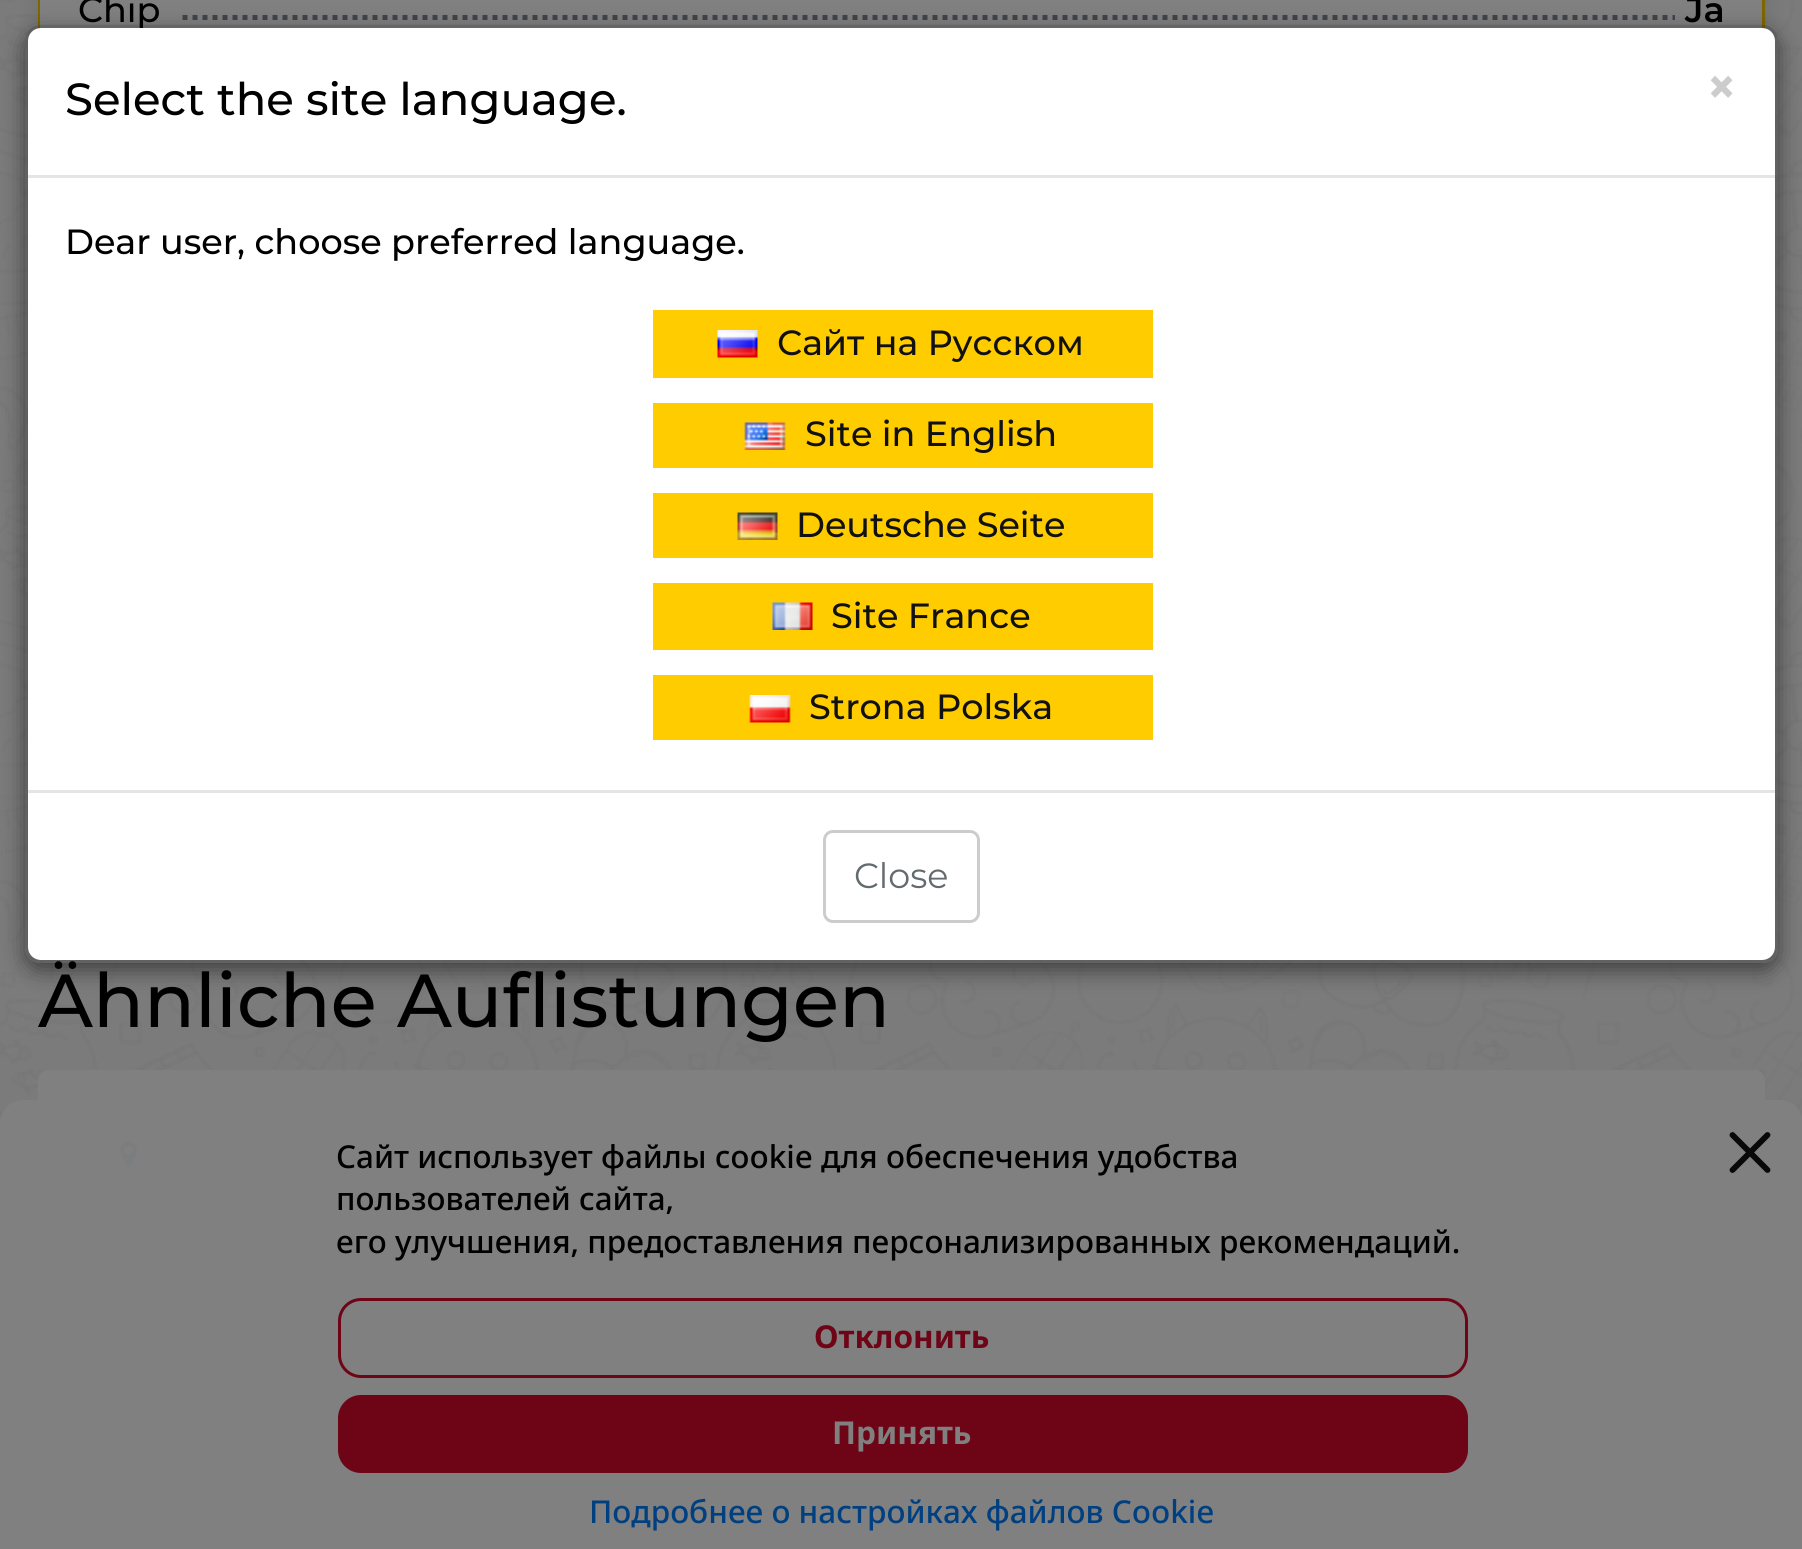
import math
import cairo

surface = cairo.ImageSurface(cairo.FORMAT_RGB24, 1802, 1549)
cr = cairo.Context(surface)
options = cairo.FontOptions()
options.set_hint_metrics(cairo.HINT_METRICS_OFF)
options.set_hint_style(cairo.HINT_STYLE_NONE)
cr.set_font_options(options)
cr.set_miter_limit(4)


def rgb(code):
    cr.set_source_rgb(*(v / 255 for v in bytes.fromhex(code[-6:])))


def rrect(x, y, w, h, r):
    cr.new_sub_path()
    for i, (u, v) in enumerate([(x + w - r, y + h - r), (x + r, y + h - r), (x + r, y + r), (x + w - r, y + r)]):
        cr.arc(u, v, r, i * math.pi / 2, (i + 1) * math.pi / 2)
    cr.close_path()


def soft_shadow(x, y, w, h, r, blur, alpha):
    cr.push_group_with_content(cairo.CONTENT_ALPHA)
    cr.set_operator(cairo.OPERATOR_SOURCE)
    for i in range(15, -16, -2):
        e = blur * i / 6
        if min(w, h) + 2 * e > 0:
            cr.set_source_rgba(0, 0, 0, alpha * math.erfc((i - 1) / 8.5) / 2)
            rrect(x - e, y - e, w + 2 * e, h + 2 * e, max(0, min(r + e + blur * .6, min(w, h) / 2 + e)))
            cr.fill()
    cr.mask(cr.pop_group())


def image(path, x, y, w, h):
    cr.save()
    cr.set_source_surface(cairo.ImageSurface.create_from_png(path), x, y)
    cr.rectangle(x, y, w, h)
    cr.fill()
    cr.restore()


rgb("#7b7b7b")
cr.paint()
image("img/1.png", 0, 0, 1802, 1549)
rgb("#000000")
soft_shadow(38, -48, 1727, 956, 10, 12.5, 0.1)
rgb("#808080")
cr.rectangle(40, 0, 1722, 29)
cr.fill()
rgb("#806600")
cr.set_fill_rule(cairo.FILL_RULE_EVEN_ODD)
cr.new_path()
cr.move_to(38, -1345)
cr.line_to(1765, -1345)
cr.line_to(1765, 892)
cr.curve_to(1765, 898, 1761, 902, 1755, 902)
cr.line_to(48, 902)
cr.curve_to(42, 902, 38, 898, 38, 892)
cr.close_path()
cr.move_to(40, -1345)
cr.line_to(1762, -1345)
cr.line_to(1762, 892)
cr.curve_to(1762, 897, 1759, 900, 1755, 900)
cr.line_to(48, 900)
cr.curve_to(43, 900, 40, 897, 40, 892)
cr.close_path()
cr.fill()
cr.new_path()
cr.move_to(182.5, 17.5)
cr.line_to(1130, 17.5)
rgb("#404347")
cr.set_line_width(5)
cr.set_dash([5, 5])
cr.stroke()
cr.new_path()
cr.move_to(1132.5, 17.5)
cr.line_to(1725, 17.5)
cr.stroke()
rgb("#808080")
cr.rectangle(1675, 15, 50, 5)
cr.fill()
cr.save()
cr.set_fill_rule(cairo.FILL_RULE_WINDING)
cr.rectangle(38, 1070, 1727, 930)
cr.clip()
rgb("#000000")
soft_shadow(38, 1075, 1727, 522, 10, 12.5, 0.1)
cr.restore()
rrect(38, 1070, 1727, 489, 10)
cr.fill()
image("img/2.png", 120, 1141, 18, 27)
cr.save()
cr.new_path()
cr.move_to(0, 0)
cr.line_to(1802, 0)
cr.line_to(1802, 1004)
cr.line_to(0, 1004)
cr.close_path()
cr.move_to(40, 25)
cr.line_to(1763, 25)
cr.curve_to(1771.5, 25, 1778, 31.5, 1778, 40)
cr.line_to(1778, 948)
cr.curve_to(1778, 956.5, 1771.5, 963, 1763, 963)
cr.line_to(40, 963)
cr.curve_to(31.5, 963, 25, 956.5, 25, 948)
cr.line_to(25, 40)
cr.curve_to(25, 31.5, 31.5, 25, 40, 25)
cr.close_path()
cr.clip()
rgb("#000000")
soft_shadow(25, 33, 1753, 937, 15, 11, 0.5)
cr.restore()
cr.set_source_rgba(0.502, 0.502, 0.502, 0.95)
cr.new_path()
cr.move_to(23, 1100)
cr.line_to(1780, 1100)
cr.curve_to(1792.5, 1100, 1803, 1110.5, 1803, 1123)
cr.line_to(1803, 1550)
cr.line_to(0, 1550)
cr.line_to(0, 1123)
cr.curve_to(0, 1110.5, 10.5, 1100, 23, 1100)
cr.close_path()
cr.fill()
rrect(339.5, 1299.5, 1127, 77, 21.5)
rgb("#6e0517")
cr.set_line_width(3)
cr.set_dash([])
cr.stroke()
rrect(339.5, 1396.5, 1127, 75, 21.5)
cr.fill_preserve()
cr.stroke()
image("img/8.png", 1729, 1132, 42, 41)
cr.select_font_face("Montserrat Medium")
cr.set_font_size(35)
rgb("#000000")
cr.move_to(78, 22)
cr.show_text("Chip")
cr.select_font_face("Montserrat SemiBold")
cr.move_to(1685, 22)
cr.show_text("Ja")
cr.select_font_face("Montserrat Medium")
cr.set_font_size(75)
cr.move_to(38, 1027)
cr.show_text("Ähnliche Auflistungen")
rgb("#ffffff")
rrect(28, 28, 1747, 932, 13)
cr.fill()
rrect(26.5, 26.5, 1750, 935, 13.5)
cr.set_source_rgba(0, 0, 0, 0.2)
cr.stroke()
rgb("#e5e5e5")
cr.rectangle(28, 175, 1747, 3)
cr.fill()
cr.set_font_size(45)
rgb("#000000")
cr.move_to(65, 115)
cr.show_text("Select the site language.")
cr.select_font_face("Montserrat", cairo.FONT_SLANT_NORMAL, cairo.FONT_WEIGHT_BOLD)
cr.set_font_size(52)
rgb("#cccccc")
cr.move_to(1706, 105)
cr.show_text("×")
cr.select_font_face("Montserrat Medium")
cr.set_font_size(35)
rgb("#000000")
cr.move_to(65, 254)
cr.show_text("Dear user, choose preferred language.")
rgb("#ffcc00")
cr.rectangle(653, 310, 500, 68)
cr.fill()
image("img/3.png", 717, 330, 41, 28)
rgb("#111111")
cr.move_to(777, 355)
cr.show_text("Сайт на Русском")
rgb("#ffcc00")
cr.rectangle(653, 403, 500, 65)
cr.fill()
image("img/4.png", 744, 422, 42, 28)
rgb("#111111")
cr.move_to(805, 446)
cr.show_text("Site in English")
rgb("#ffcc00")
cr.rectangle(653, 493, 500, 65)
cr.fill()
image("img/5.png", 737, 512, 41, 28)
rgb("#111111")
cr.move_to(796, 537)
cr.show_text("Deutsche Seite")
rgb("#ffcc00")
cr.rectangle(653, 583, 500, 67)
cr.fill()
image("img/6.png", 772, 602, 41, 28)
rgb("#111111")
cr.move_to(831, 628)
cr.show_text("Site France")
rgb("#ffcc00")
cr.rectangle(653, 675, 500, 65)
cr.fill()
image("img/7.png", 749, 695, 42, 28)
rgb("#111111")
cr.move_to(809, 719)
cr.show_text("Strona Polska")
rgb("#e5e5e5")
cr.rectangle(28, 790, 1747, 3)
cr.fill()
rrect(824.5, 831.5, 154, 90, 8.5)
rgb("#cccccc")
cr.stroke()
cr.select_font_face("Montserrat")
rgb("#636b6f")
cr.move_to(854, 888)
cr.show_text("Close")
cr.select_font_face("Noto Sans Medium")
cr.set_font_size(31.5)
rgb("#000000")
for x, y, s in [
    (336, 1168, "Cайт использует файлы cookie для обеспечения удобства"),
    (336, 1210, "пользователей сайта,"),
    (336, 1253, "его улучшения, предоставления персонализированных рекомендаций."),
]:
    cr.move_to(x, y)
    cr.show_text(s)
cr.select_font_face("Noto Sans", cairo.FONT_SLANT_NORMAL, cairo.FONT_WEIGHT_BOLD)
rgb("#6e0517")
cr.move_to(814, 1348)
cr.show_text("Отклонить")
rgb("#808080")
cr.move_to(832, 1444)
cr.show_text("Принять")
cr.select_font_face("Noto Sans Medium")
rgb("#003f80")
cr.move_to(589, 1523)
cr.show_text("Подробнее о настройках файлов Cookie")
surface.write_to_png("page.png")
